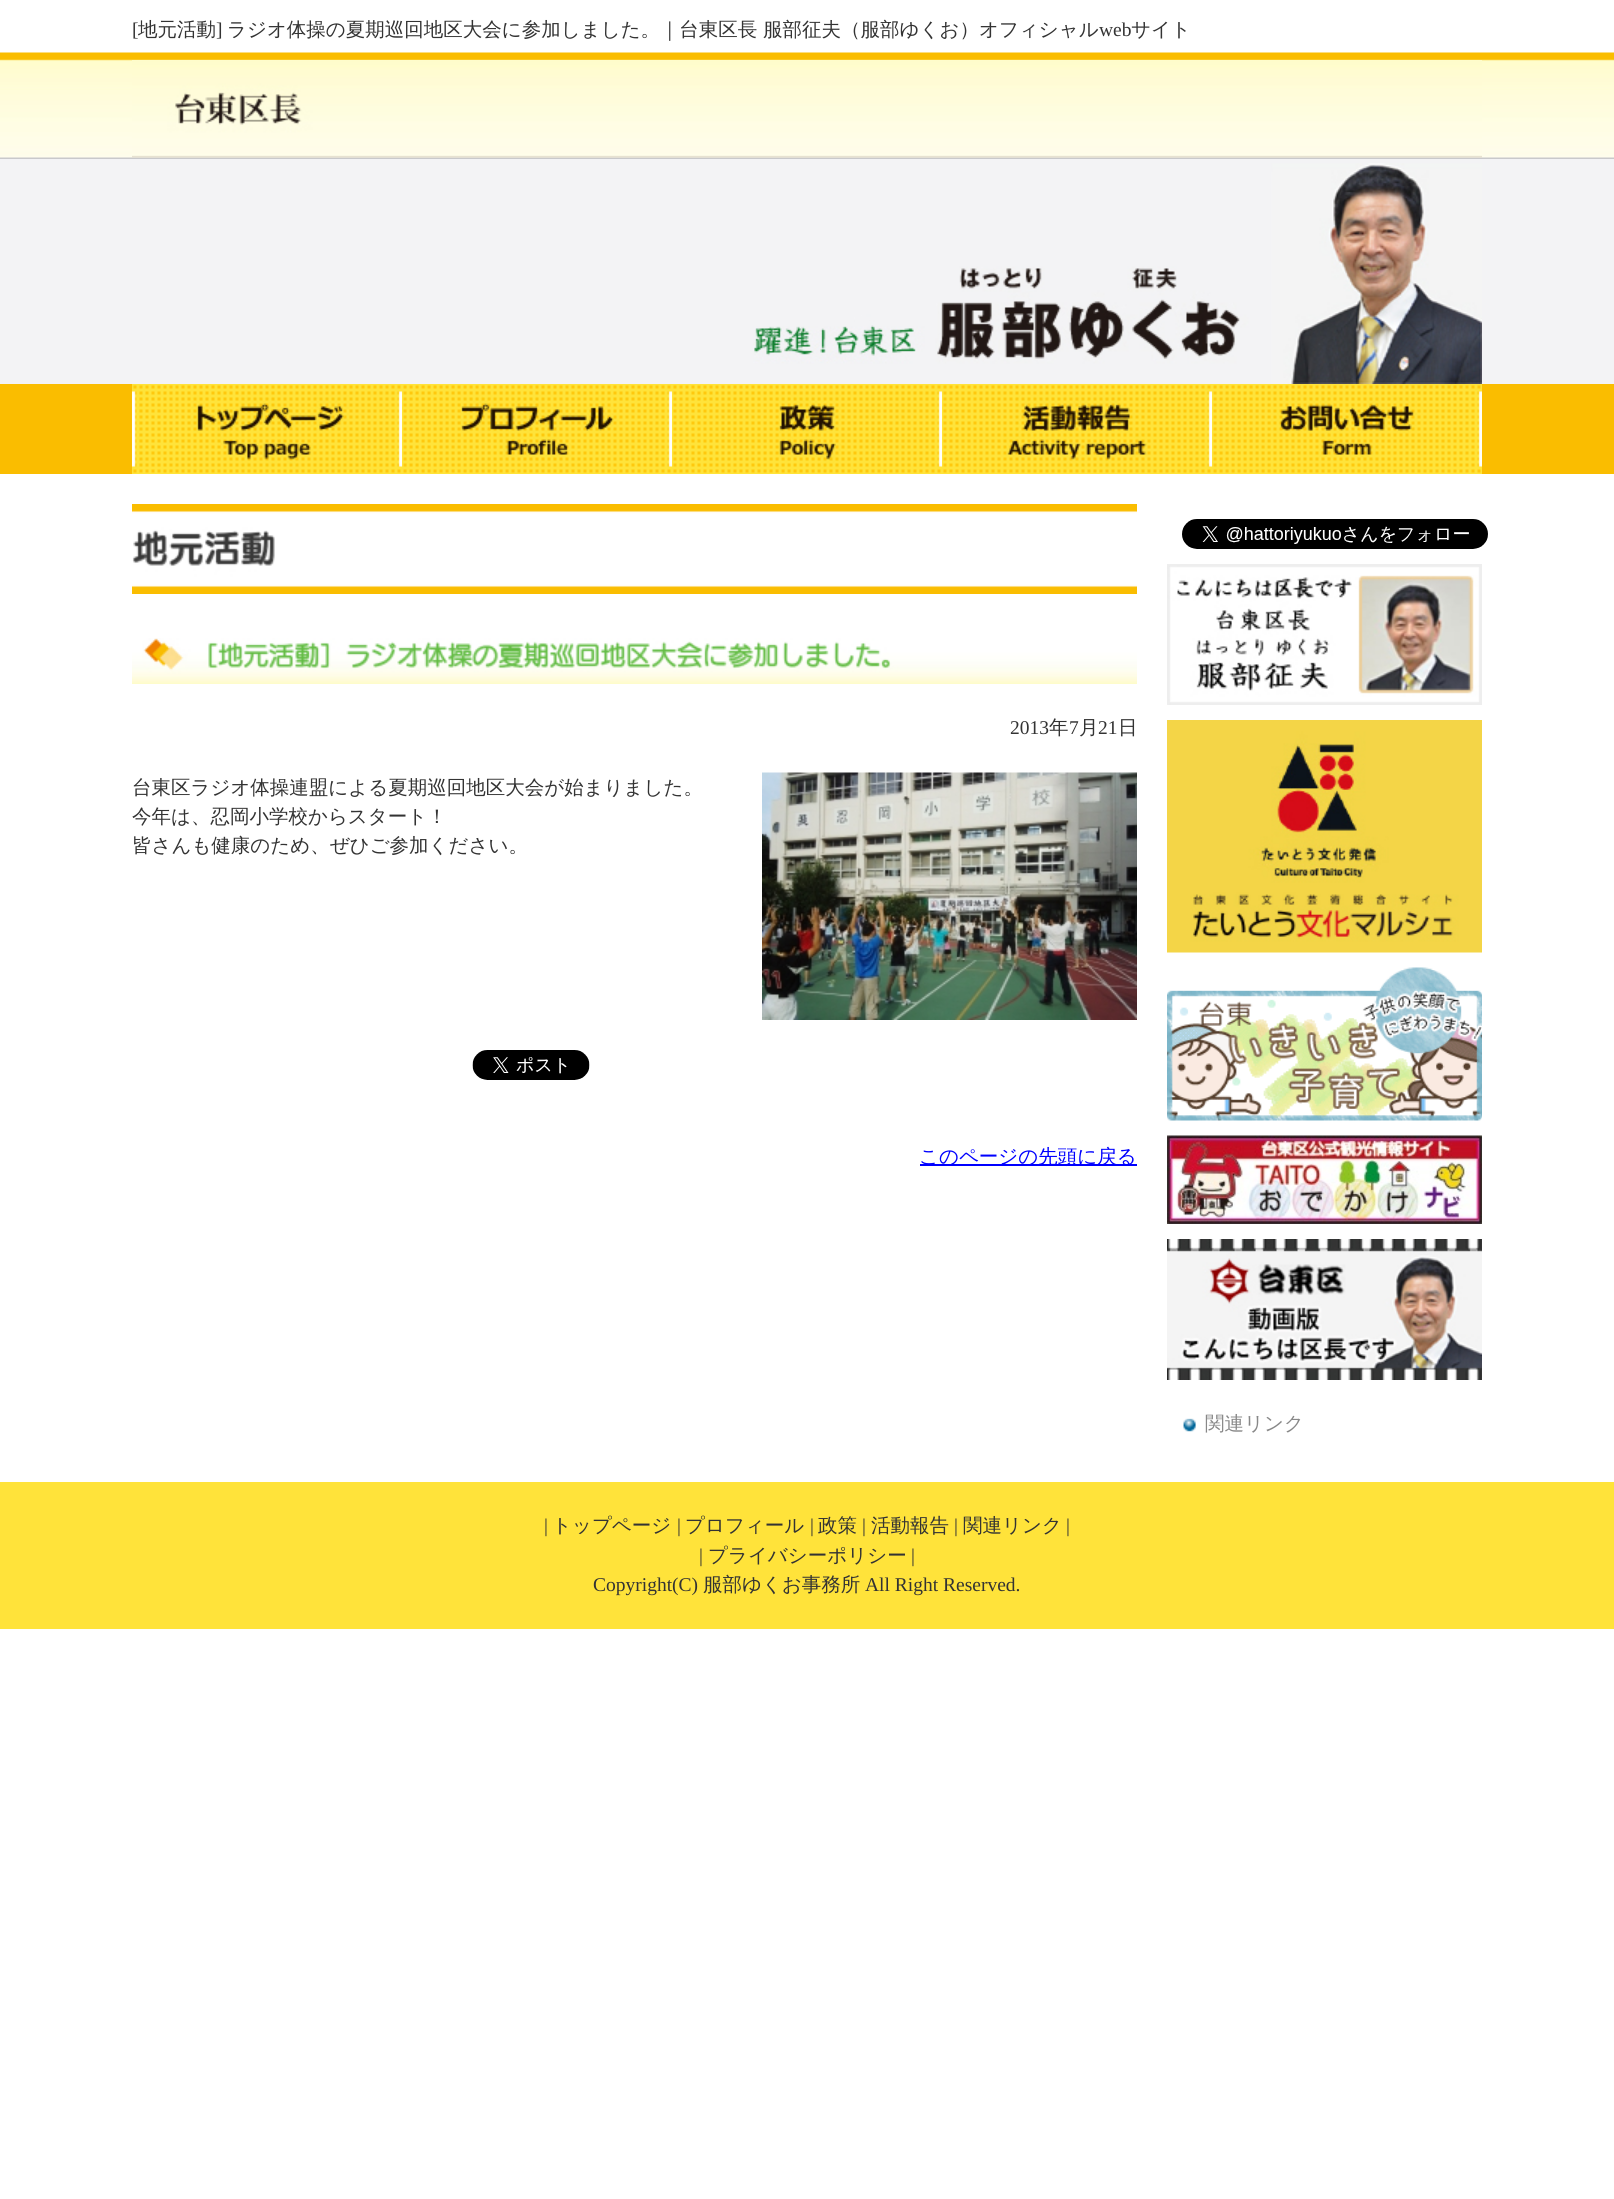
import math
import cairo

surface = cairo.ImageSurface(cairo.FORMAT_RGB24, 1614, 2199)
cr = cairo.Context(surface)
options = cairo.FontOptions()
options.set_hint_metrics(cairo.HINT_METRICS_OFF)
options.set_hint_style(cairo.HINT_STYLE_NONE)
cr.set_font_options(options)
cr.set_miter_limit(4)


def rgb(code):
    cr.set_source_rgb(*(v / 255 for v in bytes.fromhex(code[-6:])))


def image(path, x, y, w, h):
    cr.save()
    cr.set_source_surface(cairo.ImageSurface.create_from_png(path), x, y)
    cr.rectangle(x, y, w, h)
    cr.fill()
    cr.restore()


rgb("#ffffff")
cr.paint()
image("img/1.png", 0, 52, 1614, 107)
image("img/2.png", 132, 60, 1350, 98)
rgb("#f3f3f5")
cr.rectangle(0, 159, 1614, 225)
cr.fill()
image("img/3.png", 753, 163, 729, 221)
rgb("#fabd00")
cr.rectangle(0, 384, 1614, 90)
cr.fill()
image("img/4.png", 132, 384, 270, 90)
image("img/5.png", 402, 384, 270, 90)
image("img/6.png", 672, 384, 270, 90)
image("img/7.png", 942, 384, 270, 90)
image("img/8.png", 1212, 384, 270, 90)
image("img/9.png", 132, 504, 1005, 90)
image("img/10.png", 132, 638, 1005, 46)
image("img/11.png", 762, 772, 375, 248)
image("img/12.png", 472, 1050, 118, 30)
rgb("#0000ff")
cr.rectangle(920, 1164, 217, 2)
cr.fill()
image("img/13.png", 1182, 519, 306, 30)
image("img/14.png", 1167, 564, 315, 141)
image("img/15.png", 1167, 720, 315, 233)
image("img/16.png", 1167, 967, 315, 154)
image("img/17.png", 1167, 1135, 315, 89)
image("img/18.png", 1167, 1239, 315, 141)
image("img/19.png", 1183, 1418, 13, 14)
rgb("#ffe33a")
cr.rectangle(0, 1482, 1614, 147)
cr.fill()
cr.select_font_face("Liberation Serif")
cr.set_font_size(19.5)
rgb("#333333")
cr.move_to(132, 36)
cr.show_text("[")
cr.select_font_face("WenQuanYi Zen Hei Medium")
cr.move_to(138, 36)
cr.show_text("地元活動")
cr.select_font_face("Liberation Serif")
cr.move_to(216, 36)
cr.show_text("]")
cr.select_font_face("WenQuanYi Zen Hei Medium")
cr.move_to(227, 36)
cr.show_text("ラジオ体操の夏期巡回地区大会に参加しました。｜台東区長 服部征夫（服部ゆくお）オフィシャル")
cr.select_font_face("Liberation Serif")
cr.move_to(1099, 36)
cr.show_text("web")
cr.select_font_face("WenQuanYi Zen Hei Medium")
cr.move_to(1131, 36)
cr.show_text("サイト")
cr.select_font_face("Liberation Serif")
cr.move_to(1010, 734)
cr.show_text("2013")
cr.select_font_face("WenQuanYi Zen Hei Medium")
cr.move_to(1049, 734)
cr.show_text("年")
cr.select_font_face("Liberation Serif")
cr.move_to(1069, 734)
cr.show_text("7")
cr.select_font_face("WenQuanYi Zen Hei Medium")
cr.move_to(1079, 734)
cr.show_text("月")
cr.select_font_face("Liberation Serif")
cr.move_to(1098, 734)
cr.show_text("21")
cr.select_font_face("WenQuanYi Zen Hei Medium")
for x, y, s in [
    (1118, 734, "日"),
    (132, 794, "台東区ラジオ体操連盟による夏期巡回地区大会が始まりました。"),
    (132, 823, "今年は、忍岡小学校からスタート！"),
    (132, 852, "皆さんも健康のため、ぜひご参加ください。"),
]:
    cr.move_to(x, y)
    cr.show_text(s)
rgb("#0000ff")
cr.move_to(919, 1163)
cr.show_text("このページの先頭に戻る")
rgb("#888888")
cr.move_to(1205, 1430)
cr.show_text("関連リンク")
cr.select_font_face("Liberation Serif")
rgb("#333333")
cr.move_to(544, 1532)
cr.show_text("|")
cr.select_font_face("WenQuanYi Zen Hei Medium")
cr.move_to(552, 1532)
cr.show_text("トップページ")
cr.select_font_face("Liberation Serif")
cr.move_to(677, 1532)
cr.show_text("|")
cr.select_font_face("WenQuanYi Zen Hei Medium")
cr.move_to(685, 1532)
cr.show_text("プロフィール")
cr.select_font_face("Liberation Serif")
cr.move_to(810, 1532)
cr.show_text("|")
cr.select_font_face("WenQuanYi Zen Hei Medium")
cr.move_to(818, 1532)
cr.show_text("政策")
cr.select_font_face("Liberation Serif")
cr.move_to(862, 1532)
cr.show_text("|")
cr.select_font_face("WenQuanYi Zen Hei Medium")
cr.move_to(871, 1532)
cr.show_text("活動報告")
cr.select_font_face("Liberation Serif")
cr.move_to(954, 1532)
cr.show_text("|")
cr.select_font_face("WenQuanYi Zen Hei Medium")
cr.move_to(963, 1532)
cr.show_text("関連リンク")
cr.select_font_face("Liberation Serif")
cr.move_to(1066, 1532)
cr.show_text("|")
cr.move_to(699, 1562)
cr.show_text("|")
cr.select_font_face("WenQuanYi Zen Hei Medium")
cr.move_to(708, 1562)
cr.show_text("プライバシーポリシー")
cr.select_font_face("Liberation Serif")
cr.move_to(911, 1562)
cr.show_text("|")
cr.move_to(593, 1591)
cr.show_text("Copyright(C)")
cr.select_font_face("WenQuanYi Zen Hei Medium")
cr.move_to(703, 1591)
cr.show_text("服部ゆくお事務所")
cr.select_font_face("Liberation Serif")
cr.move_to(865, 1591)
cr.show_text("All Right Reserved.")
surface.write_to_png("page.png")
